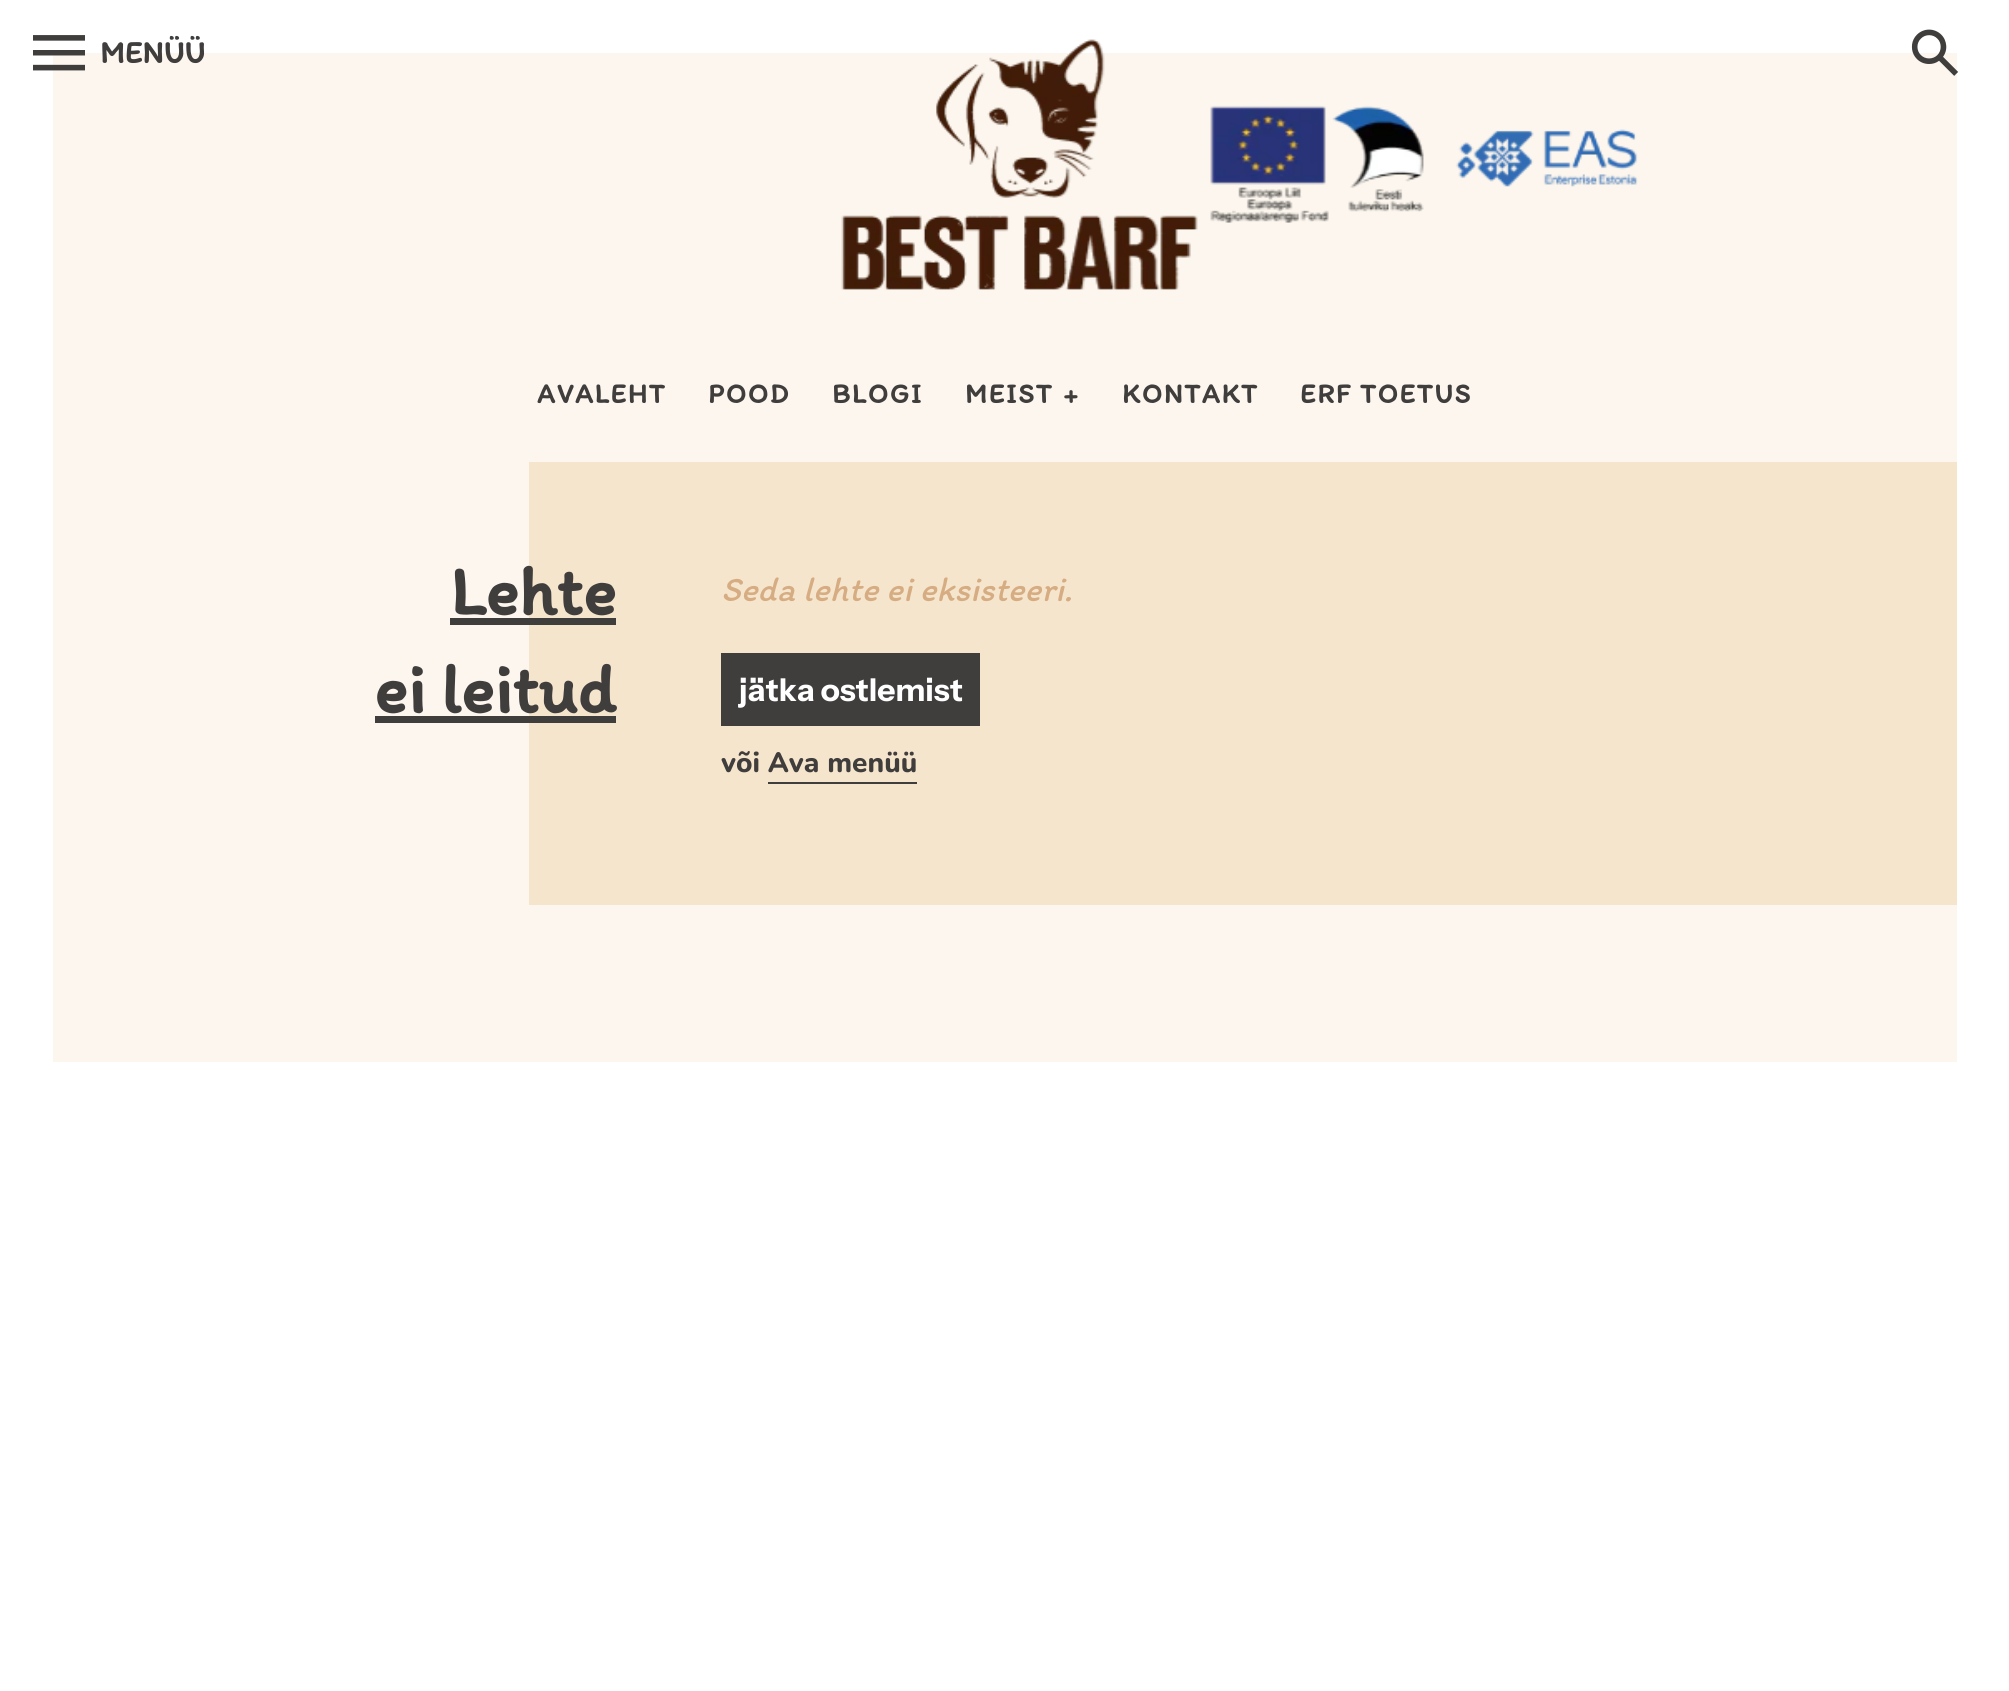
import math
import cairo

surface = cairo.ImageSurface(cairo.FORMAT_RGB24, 2009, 1691)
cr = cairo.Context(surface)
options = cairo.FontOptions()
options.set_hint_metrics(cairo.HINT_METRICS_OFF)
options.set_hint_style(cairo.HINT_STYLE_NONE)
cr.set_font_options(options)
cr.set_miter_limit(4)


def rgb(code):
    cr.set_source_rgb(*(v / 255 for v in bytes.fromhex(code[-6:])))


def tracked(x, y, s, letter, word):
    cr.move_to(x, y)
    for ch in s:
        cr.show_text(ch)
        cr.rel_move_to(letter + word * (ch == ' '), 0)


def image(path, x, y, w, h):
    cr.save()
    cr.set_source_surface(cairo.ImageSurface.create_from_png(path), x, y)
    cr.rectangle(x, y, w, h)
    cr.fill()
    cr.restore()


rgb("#ffffff")
cr.paint()
rgb("#fcf6ee")
cr.rectangle(53, 53, 1904, 1009)
cr.fill()
image("img/1.png", 841, 39, 797, 251)
for x, y, w, h, color in [
    (529, 462, 1428, 443, "#f6e5cd"),
    (450, 618, 166, 7, "#403d3d"),
    (375, 716, 241, 7, "#403d3d"),
    (721, 653, 259, 73, "#403d3d"),
    (768, 782, 149, 2, "#403d3d"),
]:
    rgb(color)
    cr.rectangle(x, y, w, h)
    cr.fill()
cr.select_font_face("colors")
cr.set_font_size(52)
cr.move_to(33, 82)
cr.show_text("1")
cr.select_font_face("Itim", cairo.FONT_SLANT_NORMAL, cairo.FONT_WEIGHT_BOLD)
cr.set_font_size(31.5)
cr.move_to(100, 63)
cr.show_text("MENÜÜ")
cr.select_font_face("colors")
cr.set_font_size(52)
cr.move_to(1909, 82)
cr.show_text("2")
cr.select_font_face("Itim", cairo.FONT_SLANT_NORMAL, cairo.FONT_WEIGHT_BOLD)
cr.set_font_size(28)
for x, y, s in [
    (537, 403, "AVALEHT"),
    (708, 403, "POOD"),
    (832, 403, "BLOGI"),
    (965, 403, "MEIST"),
    (1063, 403, "+"),
    (1122, 403, "KONTAKT"),
    (1300, 403, "ERF TOETUS"),
]:
    tracked(x, y, s, 1.75, 0)
cr.set_font_size(70)
cr.move_to(450, 615)
cr.show_text("Lehte")
cr.move_to(374, 713)
cr.show_text("ei leitud")
cr.select_font_face("Itim", cairo.FONT_SLANT_ITALIC)
cr.set_font_size(35)
rgb("#d6ad83")
cr.move_to(721, 601)
cr.show_text("Seda lehte ei eksisteeri.")
cr.select_font_face("Instrument Sans", cairo.FONT_SLANT_NORMAL, cairo.FONT_WEIGHT_BOLD)
cr.set_font_size(31.5)
rgb("#ffffff")
cr.move_to(739, 701)
cr.show_text("jätka ostlemist")
cr.select_font_face("Nunito ExtraBold")
cr.set_font_size(28)
rgb("#403d3d")
cr.move_to(721, 772)
cr.show_text("või Ava menüü")
surface.write_to_png("page.png")
